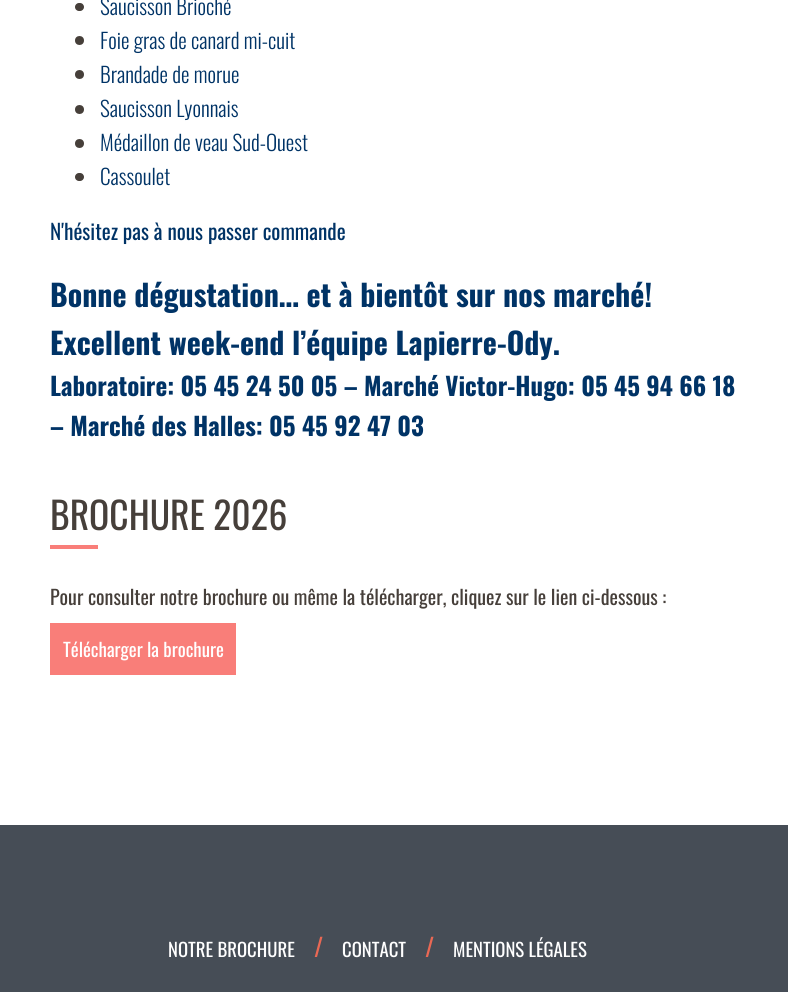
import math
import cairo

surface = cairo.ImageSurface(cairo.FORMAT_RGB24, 788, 992)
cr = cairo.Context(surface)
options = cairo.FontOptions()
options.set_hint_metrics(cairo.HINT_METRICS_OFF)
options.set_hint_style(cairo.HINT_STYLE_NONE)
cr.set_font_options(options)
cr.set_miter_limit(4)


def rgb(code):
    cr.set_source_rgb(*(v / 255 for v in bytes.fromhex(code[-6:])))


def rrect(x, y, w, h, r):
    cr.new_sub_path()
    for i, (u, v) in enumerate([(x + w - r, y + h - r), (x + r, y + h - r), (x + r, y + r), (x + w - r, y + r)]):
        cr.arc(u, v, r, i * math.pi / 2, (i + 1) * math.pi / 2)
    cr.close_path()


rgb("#ffffff")
cr.paint()
rgb("#463f3a")
rrect(75, 3, 9, 8, 4)
cr.fill()
cr.arc(79.5, 40.5, 4.5, 0, 2 * math.pi)
cr.fill()
cr.arc(79.5, 74.5, 4.5, 0, 2 * math.pi)
cr.fill()
cr.arc(79.5, 109.5, 4.5, 0, 2 * math.pi)
cr.fill()
cr.arc(79.5, 143.5, 4.5, 0, 2 * math.pi)
cr.fill()
rrect(75, 173, 9, 8, 4)
cr.fill()
for x, y, w, h, color in [
    (50, 545, 48, 4, "#f97e79"),
    (50, 623, 186, 52, "#f97e79"),
    (0, 825, 788, 167, "#464d56"),
]:
    rgb(color)
    cr.rectangle(x, y, w, h)
    cr.fill()
cr.select_font_face("Oswald Light")
cr.set_font_size(21.25)
rgb("#003366")
for x, y, s in [
    (100, 15, "Saucisson Brioché"),
    (100, 49, "Foie gras de canard mi-cuit"),
    (100, 83, "Brandade de morue"),
    (100, 117, "Saucisson Lyonnais"),
    (100, 151, "Médaillon de veau Sud-Ouest"),
    (100, 185, "Cassoulet"),
]:
    cr.move_to(x, y)
    cr.show_text(s)
cr.select_font_face("Oswald")
cr.move_to(50, 240)
cr.show_text("N'hésitez pas à nous passer commande")
cr.select_font_face("Oswald", cairo.FONT_SLANT_NORMAL, cairo.FONT_WEIGHT_BOLD)
cr.set_font_size(30)
cr.move_to(50, 307)
cr.show_text("Bonne dégustation… et à bientôt sur nos marché!")
cr.move_to(50, 355)
cr.show_text("Excellent week-end l’équipe Lapierre-Ody.")
cr.set_font_size(25)
cr.move_to(50, 396)
cr.show_text("Laboratoire: 05 45 24 50 05 – Marché Victor-Hugo: 05 45 94 66 18")
cr.move_to(50, 436)
cr.show_text("– Marché des Halles: 05 45 92 47 03")
cr.select_font_face("Oswald")
cr.set_font_size(37.5)
rgb("#463f3a")
cr.move_to(50, 530)
cr.show_text("BROCHURE 2026")
cr.set_font_size(20)
cr.move_to(50, 605)
cr.show_text("Pour consulter notre brochure ou même la télécharger, cliquez sur le lien ci-dessous :")
cr.set_font_size(18.75)
rgb("#ffffff")
cr.move_to(63, 657)
cr.show_text("Télécharger la brochure")
cr.move_to(168, 957)
cr.show_text("NOTRE BROCHURE")
cr.set_font_size(25)
rgb("#ea6854")
cr.move_to(314, 957)
cr.show_text("/")
cr.set_font_size(18.75)
rgb("#ffffff")
cr.move_to(342, 957)
cr.show_text("CONTACT")
cr.set_font_size(25)
rgb("#ea6854")
cr.move_to(425, 957)
cr.show_text("/")
cr.set_font_size(18.75)
rgb("#ffffff")
cr.move_to(453, 957)
cr.show_text("MENTIONS LÉGALES")
surface.write_to_png("page.png")
